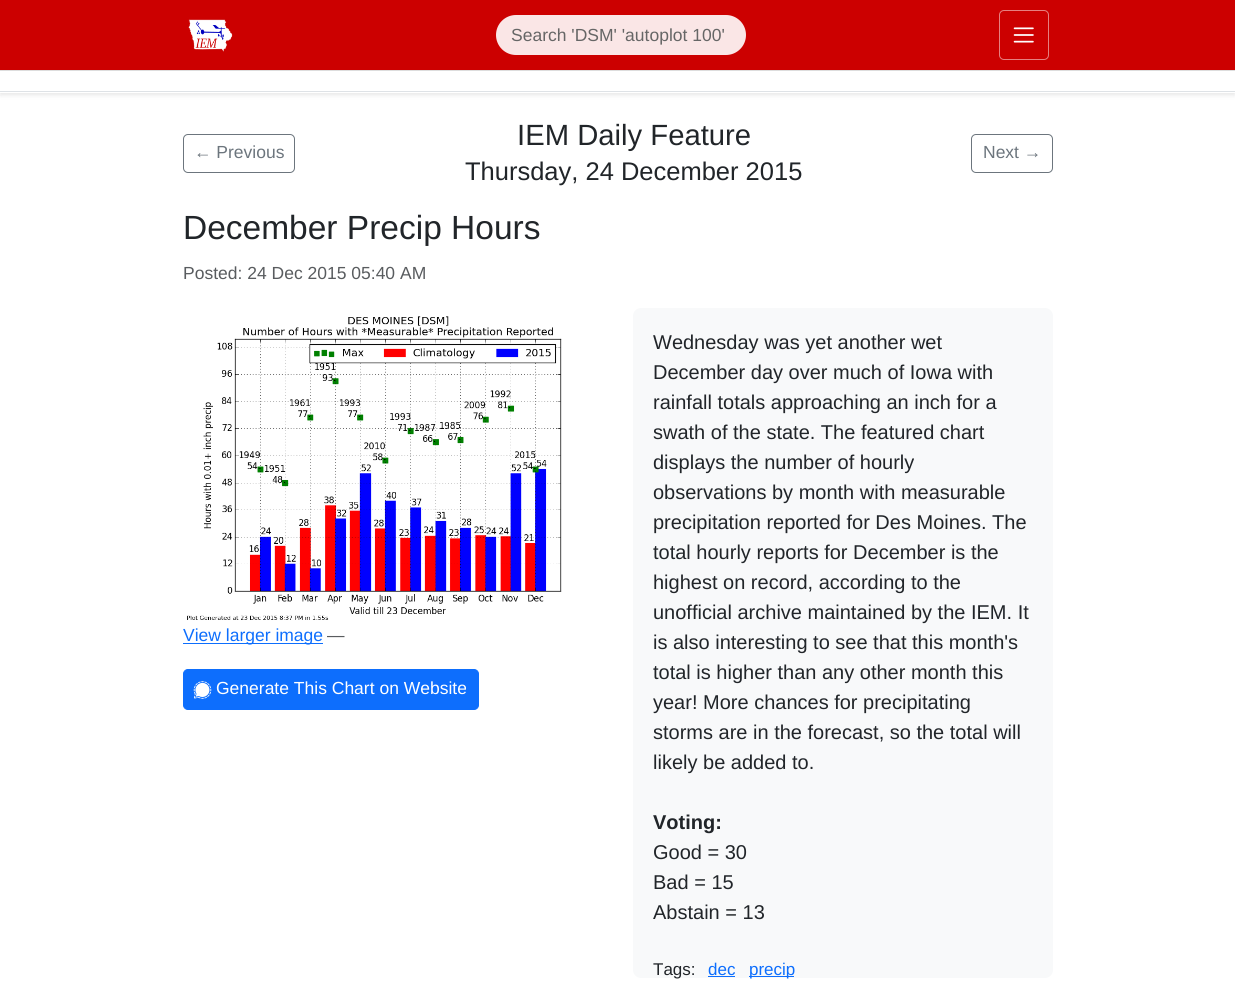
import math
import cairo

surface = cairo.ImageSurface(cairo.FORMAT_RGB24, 1235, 990)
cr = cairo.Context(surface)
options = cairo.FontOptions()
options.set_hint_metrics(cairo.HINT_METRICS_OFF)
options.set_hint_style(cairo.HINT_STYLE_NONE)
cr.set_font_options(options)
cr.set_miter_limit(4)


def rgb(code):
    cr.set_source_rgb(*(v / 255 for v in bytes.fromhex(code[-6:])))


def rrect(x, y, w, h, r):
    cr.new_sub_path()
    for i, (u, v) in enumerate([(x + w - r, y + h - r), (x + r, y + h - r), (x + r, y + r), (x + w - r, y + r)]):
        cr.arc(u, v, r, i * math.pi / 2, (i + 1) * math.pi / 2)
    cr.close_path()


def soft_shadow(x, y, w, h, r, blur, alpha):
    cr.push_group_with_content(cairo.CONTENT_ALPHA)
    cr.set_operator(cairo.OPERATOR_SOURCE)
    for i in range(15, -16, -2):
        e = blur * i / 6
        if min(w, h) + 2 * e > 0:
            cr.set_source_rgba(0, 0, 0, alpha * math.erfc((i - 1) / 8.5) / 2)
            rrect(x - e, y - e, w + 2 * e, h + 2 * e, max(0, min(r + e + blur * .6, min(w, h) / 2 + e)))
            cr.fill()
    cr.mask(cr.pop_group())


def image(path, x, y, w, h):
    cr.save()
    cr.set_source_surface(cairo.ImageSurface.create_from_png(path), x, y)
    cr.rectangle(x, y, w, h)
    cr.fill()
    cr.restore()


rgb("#ffffff")
cr.paint()
rgb("#000000")
soft_shadow(0, 73, 1235, 22, 0, 2.5, 0.1)
rgb("#cc0000")
cr.rectangle(0, 0, 1235, 70)
cr.fill()
image("img/1.png", 188, 19, 45, 33)
rgb("#fae6e6")
rrect(496, 15, 250, 40, 20)
cr.fill()
rrect(999.5, 10.5, 49, 49, 4.5)
rgb("#e68080")
cr.set_line_width(1)
cr.stroke()
image("img/2.png", 1013, 27, 21, 16)
for x, y, w, h, color in [
    (0, 71, 1235, 22, "#ffffff"),
    (0, 70, 1235, 1, "#dddddd"),
    (0, 91, 1235, 1, "#dee2e6"),
]:
    rgb(color)
    cr.rectangle(x, y, w, h)
    cr.fill()
rrect(183.5, 134.5, 111, 38, 4.5)
rgb("#6c757d")
cr.stroke()
rrect(971.5, 134.5, 81, 38, 4.5)
cr.stroke()
image("img/3.png", 187, 316, 375, 304)
rgb("#0d6efd")
cr.rectangle(183, 643, 140, 1)
cr.fill()
rrect(183.5, 669.5, 295, 40, 4.5)
cr.fill_preserve()
cr.stroke()
image("img/4.png", 193, 681, 19, 18)
rgb("#f8f9fa")
rrect(633, 308, 420, 670, 8)
cr.fill()
rgb("#0d6efd")
cr.rectangle(708, 976, 27, 1)
cr.fill()
cr.rectangle(749, 976, 45, 1)
cr.fill()
cr.select_font_face("Liberation Sans")
cr.set_font_size(17.5)
rgb("#666666")
cr.move_to(511, 41)
cr.show_text("Search 'DSM' 'autoplot 100'")
rgb("#6c757d")
cr.move_to(194, 158)
cr.show_text("← Previous")
cr.set_font_size(29.25)
rgb("#212529")
cr.move_to(517, 145)
cr.show_text("IEM Daily Feature")
cr.set_font_size(25.5)
cr.move_to(465, 180)
cr.show_text("Thursday, 24 December 2015")
cr.set_font_size(17.5)
rgb("#6c757d")
cr.move_to(983, 158)
cr.show_text("Next →")
cr.set_font_size(33.5)
rgb("#212529")
cr.move_to(183, 239)
cr.show_text("December Precip Hours")
cr.set_font_size(17.5)
rgb("#595c5f")
cr.move_to(183, 279)
cr.show_text("Posted: 24 Dec 2015 05:40 AM")
rgb("#0d6efd")
cr.move_to(183, 641)
cr.show_text("View larger image")
rgb("#595c5f")
cr.move_to(327, 641)
cr.show_text("—")
rgb("#ffffff")
cr.move_to(216, 694)
cr.show_text("Generate This Chart on Website")
cr.set_font_size(20)
rgb("#212529")
for x, y, s in [
    (653, 349, "Wednesday was yet another wet"),
    (653, 379, "December day over much of Iowa with"),
    (653, 409, "rainfall totals approaching an inch for a"),
    (653, 439, "swath of the state. The featured chart"),
    (653, 469, "displays the number of hourly"),
    (653, 499, "observations by month with measurable"),
    (653, 529, "precipitation reported for Des Moines. The"),
    (653, 559, "total hourly reports for December is the"),
    (653, 589, "highest on record, according to the"),
    (653, 619, "unofficial archive maintained by the IEM. It"),
    (653, 649, "is also interesting to see that this month's"),
    (653, 679, "total is higher than any other month this"),
    (653, 709, "year! More chances for precipitating"),
    (653, 739, "storms are in the forecast, so the total will"),
    (653, 769, "likely be added to."),
]:
    cr.move_to(x, y)
    cr.show_text(s)
cr.select_font_face("Liberation Sans", cairo.FONT_SLANT_NORMAL, cairo.FONT_WEIGHT_BOLD)
cr.move_to(653, 829)
cr.show_text("Voting:")
cr.select_font_face("Liberation Sans")
for x, y, s in [
    (653, 859, "Good = 30"),
    (653, 889, "Bad = 15"),
    (653, 919, "Abstain = 13"),
]:
    cr.move_to(x, y)
    cr.show_text(s)
cr.set_font_size(17)
cr.move_to(653, 975)
cr.show_text("Tags:")
rgb("#0d6efd")
cr.move_to(708, 975)
cr.show_text("dec")
cr.move_to(749, 975)
cr.show_text("precip")
surface.write_to_png("page.png")
